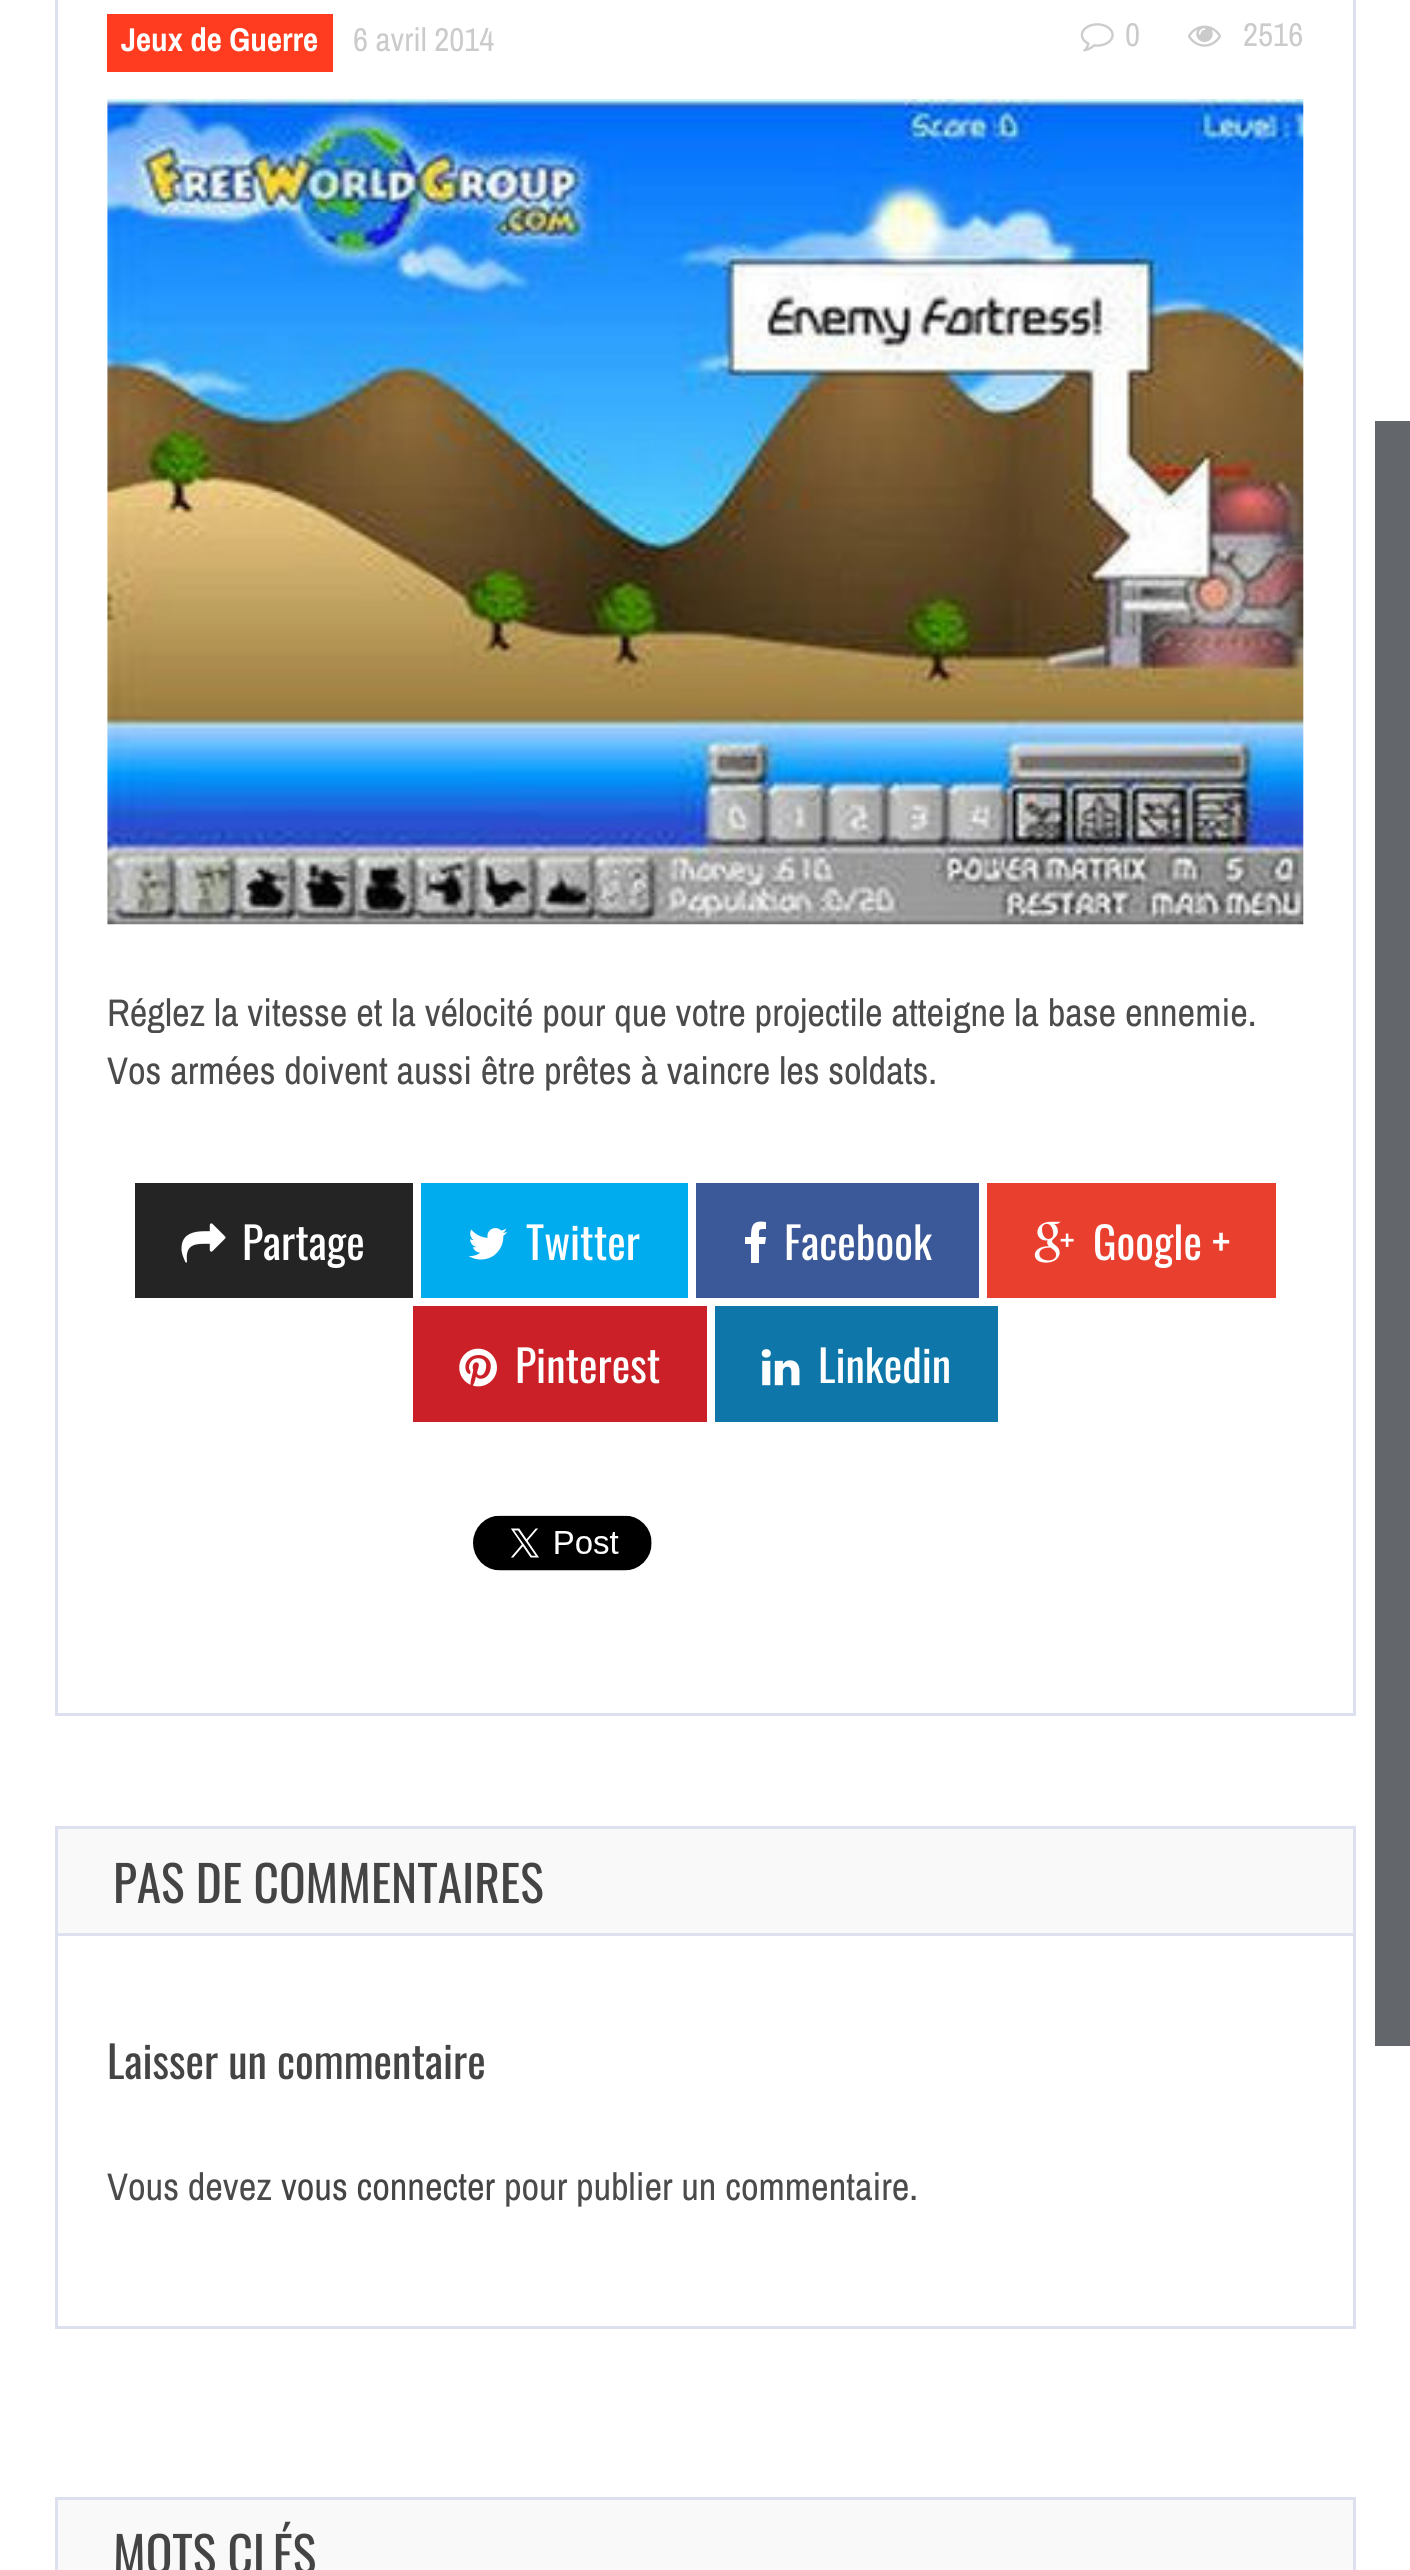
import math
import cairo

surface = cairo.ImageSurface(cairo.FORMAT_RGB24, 1410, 2570)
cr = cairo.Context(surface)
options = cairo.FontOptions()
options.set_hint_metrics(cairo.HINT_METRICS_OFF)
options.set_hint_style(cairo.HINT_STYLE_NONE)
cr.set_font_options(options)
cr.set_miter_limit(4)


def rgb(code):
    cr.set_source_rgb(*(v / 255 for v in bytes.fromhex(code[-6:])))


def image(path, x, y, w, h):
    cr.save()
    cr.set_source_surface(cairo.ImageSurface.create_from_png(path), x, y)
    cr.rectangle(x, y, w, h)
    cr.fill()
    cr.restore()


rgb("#ffffff")
cr.paint()
cr.rectangle(56.5, -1.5, 1298, 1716)
rgb("#dde1ef")
cr.set_line_width(3)
cr.stroke()
rgb("#ff3c1f")
cr.rectangle(107, 14, 226, 58)
cr.fill()
image("img/1.png", 1080, 23, 34, 29)
image("img/2.png", 1188, 25, 33, 22)
rgb("#f9f9f9")
cr.rectangle(107, 99, 1197, 825)
cr.fill()
image("img/3.png", 107, 99, 1197, 826)
rgb("#242424")
cr.rectangle(135, 1183, 278, 115)
cr.fill()
image("img/4.png", 181, 1223, 45, 40)
rgb("#00acee")
cr.rectangle(421, 1183, 267, 115)
cr.fill()
image("img/5.png", 468, 1228, 40, 32)
rgb("#3b5998")
cr.rectangle(696, 1183, 283, 115)
cr.fill()
rgb("#ffffff")
cr.new_path()
cr.move_to(745, 1244)
cr.line_to(745, 1237)
cr.line_to(751, 1237)
cr.curve_to(751, 1225, 753, 1220, 766, 1222)
cr.line_to(766, 1229)
cr.curve_to(758, 1229, 759, 1229, 759, 1237)
cr.line_to(766, 1237)
cr.line_to(765, 1244)
cr.line_to(759, 1244)
cr.line_to(759, 1263)
cr.line_to(751, 1263)
cr.line_to(751, 1244)
cr.close_path()
cr.fill()
rgb("#e93f2e")
cr.rectangle(987, 1183, 289, 115)
cr.fill()
image("img/6.png", 1034, 1221, 40, 42)
rgb("#cb2027")
cr.rectangle(413, 1306, 294, 116)
cr.fill()
image("img/7.png", 459, 1348, 38, 39)
rgb("#0e76a8")
cr.rectangle(715, 1306, 283, 116)
cr.fill()
image("img/8.png", 761, 1349, 39, 37)
image("img/9.png", 473, 1515, 179, 56)
for x, y, w, h, color in [
    (55, 1826, 1301, 3, "#dde1ef"),
    (1353, 1826, 3, 107, "#dde1ef"),
    (55, 1826, 3, 107, "#dde1ef"),
    (58, 1829, 1295, 104, "#f9f9f9"),
]:
    rgb(color)
    cr.rectangle(x, y, w, h)
    cr.fill()
cr.rectangle(56.5, 1934.5, 1298, 393)
rgb("#dde1ef")
cr.stroke()
cr.rectangle(56.5, 2498.5, 1298, 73)
cr.stroke()
rgb("#f9f9f9")
cr.rectangle(58, 2500, 1295, 70)
cr.fill()
rgb("#63676c")
cr.rectangle(1375, 421, 35, 1625)
cr.fill()
cr.select_font_face("Archivo Narrow", cairo.FONT_SLANT_NORMAL, cairo.FONT_WEIGHT_BOLD)
cr.set_font_size(33)
rgb("#ffffff")
cr.move_to(121, 51)
cr.show_text("Jeux de Guerre")
cr.select_font_face("Archivo Narrow")
rgb("#cbcbcb")
for x, y, s in [
    (353, 51, "6 avril 2014"),
    (1125, 46, "0"),
    (1243, 46, "2516"),
]:
    cr.move_to(x, y)
    cr.show_text(s)
cr.set_font_size(38.5)
rgb("#4b4b4b")
cr.move_to(107, 1026)
cr.show_text("Réglez la vitesse et la vélocité pour que votre projectile atteigne la base ennemie.")
cr.move_to(107, 1084)
cr.show_text("Vos armées doivent aussi être prêtes à vaincre les soldats.")
cr.select_font_face("Oswald")
cr.set_font_size(44)
rgb("#ffffff")
for x, y, s in [
    (242, 1260, "Partage"),
    (526, 1260, "Twitter"),
    (784, 1260, "Facebook"),
    (1093, 1260, "Google +"),
    (515, 1383, "Pinterest"),
    (818, 1383, "Linkedin"),
]:
    cr.move_to(x, y)
    cr.show_text(s)
cr.set_font_size(49.5)
rgb("#444444")
cr.move_to(113, 1903)
cr.show_text("PAS DE COMMENTAIRES")
cr.set_font_size(44)
cr.move_to(107, 2079)
cr.show_text("Laisser un commentaire")
cr.select_font_face("Archivo Narrow")
cr.set_font_size(38.5)
rgb("#4b4b4b")
cr.move_to(107, 2200)
cr.show_text("Vous devez")
rgb("#444444")
cr.move_to(281, 2200)
cr.show_text("vous connecter")
rgb("#4b4b4b")
cr.move_to(504, 2200)
cr.show_text("pour publier un commentaire.")
cr.select_font_face("Oswald")
cr.set_font_size(49.5)
rgb("#444444")
cr.move_to(113, 2574)
cr.show_text("MOTS CLÉS")
surface.write_to_png("page.png")
